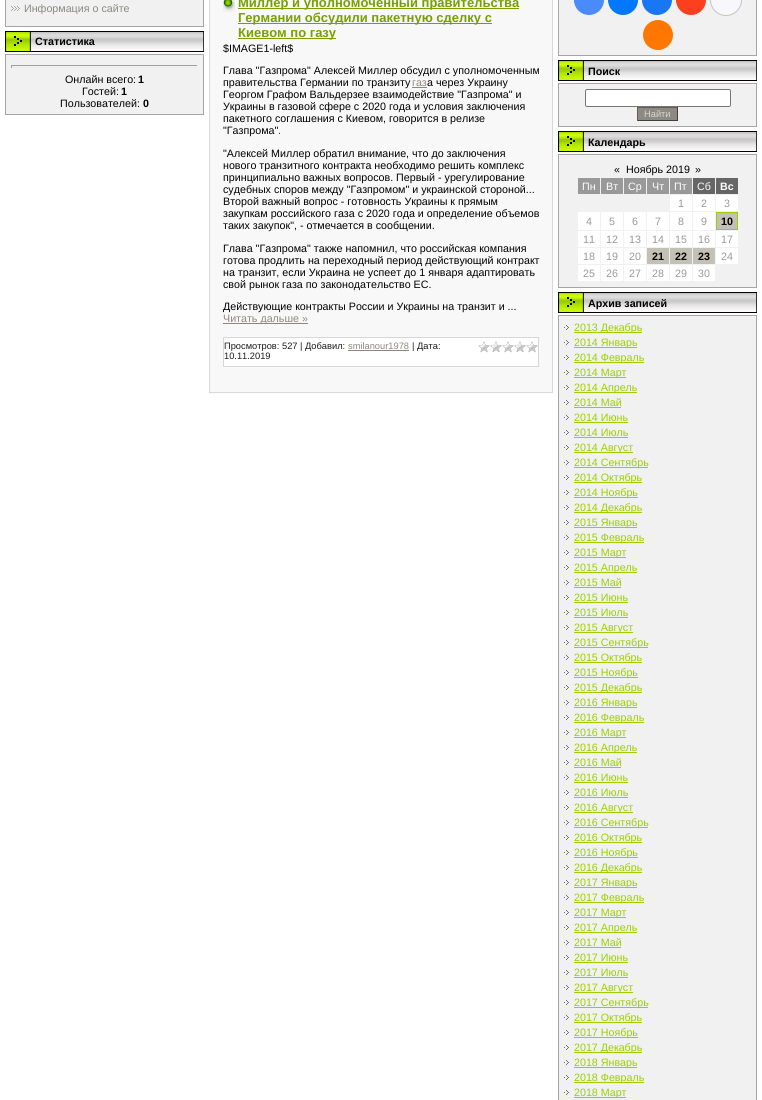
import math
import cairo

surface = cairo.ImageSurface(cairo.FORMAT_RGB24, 762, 1100)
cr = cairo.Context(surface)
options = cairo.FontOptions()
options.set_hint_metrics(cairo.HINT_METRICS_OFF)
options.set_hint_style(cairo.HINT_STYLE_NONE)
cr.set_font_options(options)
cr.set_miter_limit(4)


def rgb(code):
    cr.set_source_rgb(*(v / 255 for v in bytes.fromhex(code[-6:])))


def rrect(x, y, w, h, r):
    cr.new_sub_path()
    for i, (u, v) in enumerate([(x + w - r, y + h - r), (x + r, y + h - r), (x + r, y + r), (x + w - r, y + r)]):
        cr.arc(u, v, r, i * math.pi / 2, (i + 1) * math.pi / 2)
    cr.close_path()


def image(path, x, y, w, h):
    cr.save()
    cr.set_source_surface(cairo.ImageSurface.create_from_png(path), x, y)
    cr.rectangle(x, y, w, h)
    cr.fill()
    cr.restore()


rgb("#ffffff")
cr.paint()
rgb("#f1f1f1")
cr.rectangle(5.5, -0.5, 198, 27)
cr.fill_preserve()
rgb("#a7a6a6")
cr.set_line_width(1)
cr.stroke()
image("img/1.png", 11, 6, 9, 5)
image("img/2.png", 5, 31, 199, 21)
rgb("#f1f1f1")
cr.rectangle(5.5, 54.5, 198, 60)
cr.fill_preserve()
rgb("#a7a6a6")
cr.stroke()
for x, y, w, h, color in [
    (11, 65, 187, 1, "#9f9f9f"),
    (197, 65, 1, 3, "#eeeeee"),
    (11, 67, 187, 1, "#eeeeee"),
    (11, 65, 1, 3, "#9f9f9f"),
]:
    rgb(color)
    cr.rectangle(x, y, w, h)
    cr.fill()
cr.rectangle(209.5, -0.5, 343, 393)
rgb("#d7d7d7")
cr.stroke()
rgb("#f8f8f8")
cr.rectangle(210, 0, 342, 392)
cr.fill()
image("img/3.png", 223, 0, 12, 12)
for x, y, w, h, color in [
    (238, 8, 281, 1, "#779f00"),
    (238, 23, 254, 1, "#779f00"),
    (238, 38, 98, 1, "#779f00"),
    (412, 87, 15, 1, "#8b8881"),
    (223, 323, 85, 1, "#8b8881"),
]:
    rgb(color)
    cr.rectangle(x, y, w, h)
    cr.fill()
rgb("#ffffff")
cr.rectangle(223.5, 337.5, 315, 29)
cr.fill_preserve()
rgb("#d7d7d7")
cr.stroke()
rgb("#8b8881")
cr.rectangle(348, 350, 61, 1)
cr.fill()
image("img/4.png", 478, 341, 60, 12)
rgb("#f1f1f1")
cr.rectangle(558.5, -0.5, 198, 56)
cr.fill_preserve()
rgb("#a7a6a6")
cr.stroke()
rgb("#498bfa")
cr.arc(589, 0, 15, 0, 2 * math.pi)
cr.fill()
rgb("#0077ff")
cr.arc(623, 0, 15, 0, 2 * math.pi)
cr.fill()
rgb("#1877f2")
cr.arc(657, 0, 15, 0, 2 * math.pi)
cr.fill()
rgb("#fc3f1d")
cr.arc(691, 0, 15, 0, 2 * math.pi)
cr.fill()
rgb("#f8f8fc")
cr.arc(726, 0, 15.5, 0, 2 * math.pi)
cr.fill_preserve()
rgb("#c4c4c4")
cr.stroke()
rgb("#ff7700")
cr.arc(658, 35, 15, 0, 2 * math.pi)
cr.fill()
image("img/2.png", 558, 60, 199, 21)
rgb("#f1f1f1")
cr.rectangle(558.5, 83.5, 198, 43)
cr.fill_preserve()
rgb("#a7a6a6")
cr.stroke()
rgb("#ffffff")
rrect(585.5, 89.5, 145, 17, 1.5)
cr.fill_preserve()
rgb("#767676")
cr.stroke()
for x, y, w, h, color in [
    (638, 108, 39, 12, "#8d8a83"),
    (637, 107, 41, 1, "#615e58"),
    (677, 107, 1, 14, "#413f3b"),
    (637, 120, 41, 1, "#413f3b"),
    (637, 107, 1, 14, "#615e58"),
]:
    rgb(color)
    cr.rectangle(x, y, w, h)
    cr.fill()
image("img/2.png", 558, 131, 199, 21)
rgb("#f1f1f1")
cr.rectangle(558.5, 154.5, 198, 133)
cr.fill_preserve()
rgb("#a7a6a6")
cr.stroke()
for x, y, w, h, color in [
    (578, 178, 22, 16, "#999999"),
    (601, 178, 22, 16, "#999999"),
    (624, 178, 22, 16, "#999999"),
    (647, 178, 22, 16, "#999999"),
    (670, 178, 22, 16, "#999999"),
    (693, 178, 22, 16, "#666666"),
    (716, 178, 22, 16, "#666666"),
    (670, 195, 22, 16, "#ffffff"),
    (693, 195, 22, 16, "#ffffff"),
    (716, 195, 22, 16, "#ffffff"),
    (578, 212, 22, 18, "#ffffff"),
    (601, 212, 22, 18, "#ffffff"),
    (624, 212, 22, 18, "#ffffff"),
    (647, 212, 22, 18, "#ffffff"),
    (670, 212, 22, 18, "#ffffff"),
    (693, 212, 22, 18, "#ffffff"),
]:
    rgb(color)
    cr.rectangle(x, y, w, h)
    cr.fill()
rgb("#c3c0b5")
cr.rectangle(716.5, 212.5, 21, 17)
cr.fill_preserve()
rgb("#9ccf00")
cr.stroke()
for x, y, w, h, color in [
    (578, 231, 22, 16, "#ffffff"),
    (601, 231, 22, 16, "#ffffff"),
    (624, 231, 22, 16, "#ffffff"),
    (647, 231, 22, 16, "#ffffff"),
    (670, 231, 22, 16, "#ffffff"),
    (693, 231, 22, 16, "#ffffff"),
    (716, 231, 22, 16, "#ffffff"),
    (578, 248, 22, 16, "#ffffff"),
    (601, 248, 22, 16, "#ffffff"),
    (624, 248, 22, 16, "#ffffff"),
    (647, 248, 22, 16, "#c3c0b5"),
    (670, 248, 22, 16, "#c3c0b5"),
    (693, 248, 22, 16, "#c3c0b5"),
    (716, 248, 22, 16, "#ffffff"),
    (578, 265, 22, 16, "#ffffff"),
    (601, 265, 22, 16, "#ffffff"),
    (624, 265, 22, 16, "#ffffff"),
    (647, 265, 22, 16, "#ffffff"),
    (670, 265, 22, 16, "#ffffff"),
    (693, 265, 22, 16, "#ffffff"),
]:
    rgb(color)
    cr.rectangle(x, y, w, h)
    cr.fill()
image("img/2.png", 558, 292, 199, 21)
rgb("#f1f1f1")
cr.rectangle(558.5, 315.5, 198, 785)
cr.fill_preserve()
rgb("#a7a6a6")
cr.stroke()
image("img/5.png", 564, 325, 5, 5)
rgb("#9ccf00")
cr.rectangle(574, 332, 68, 1)
cr.fill()
image("img/5.png", 564, 340, 5, 5)
cr.rectangle(574, 347, 63, 1)
cr.fill()
image("img/5.png", 564, 355, 5, 5)
cr.rectangle(574, 362, 70, 1)
cr.fill()
image("img/5.png", 564, 370, 5, 5)
cr.rectangle(574, 377, 52, 1)
cr.fill()
image("img/5.png", 564, 385, 5, 5)
cr.rectangle(574, 392, 63, 1)
cr.fill()
image("img/5.png", 564, 400, 5, 5)
cr.rectangle(574, 407, 47, 1)
cr.fill()
image("img/5.png", 564, 415, 5, 5)
cr.rectangle(574, 422, 54, 1)
cr.fill()
image("img/5.png", 564, 430, 5, 5)
cr.rectangle(574, 437, 54, 1)
cr.fill()
image("img/5.png", 564, 445, 5, 5)
cr.rectangle(574, 452, 59, 1)
cr.fill()
image("img/5.png", 564, 460, 5, 5)
cr.rectangle(574, 467, 74, 1)
cr.fill()
image("img/5.png", 564, 475, 5, 5)
cr.rectangle(574, 482, 68, 1)
cr.fill()
image("img/5.png", 564, 490, 5, 5)
cr.rectangle(574, 497, 64, 1)
cr.fill()
image("img/5.png", 564, 505, 5, 5)
cr.rectangle(574, 512, 68, 1)
cr.fill()
image("img/5.png", 564, 520, 5, 5)
cr.rectangle(574, 527, 63, 1)
cr.fill()
image("img/5.png", 564, 535, 5, 5)
cr.rectangle(574, 542, 70, 1)
cr.fill()
image("img/5.png", 564, 550, 5, 5)
cr.rectangle(574, 557, 52, 1)
cr.fill()
image("img/5.png", 564, 565, 5, 5)
cr.rectangle(574, 572, 63, 1)
cr.fill()
image("img/5.png", 564, 580, 5, 5)
cr.rectangle(574, 587, 47, 1)
cr.fill()
image("img/5.png", 564, 595, 5, 5)
cr.rectangle(574, 602, 54, 1)
cr.fill()
image("img/5.png", 564, 610, 5, 5)
cr.rectangle(574, 617, 54, 1)
cr.fill()
image("img/5.png", 564, 625, 5, 5)
cr.rectangle(574, 632, 59, 1)
cr.fill()
image("img/5.png", 564, 640, 5, 5)
cr.rectangle(574, 647, 74, 1)
cr.fill()
image("img/5.png", 564, 655, 5, 5)
cr.rectangle(574, 662, 68, 1)
cr.fill()
image("img/5.png", 564, 670, 5, 5)
cr.rectangle(574, 677, 64, 1)
cr.fill()
image("img/5.png", 564, 685, 5, 5)
cr.rectangle(574, 692, 68, 1)
cr.fill()
image("img/5.png", 564, 700, 5, 5)
cr.rectangle(574, 707, 63, 1)
cr.fill()
image("img/5.png", 564, 715, 5, 5)
cr.rectangle(574, 722, 70, 1)
cr.fill()
image("img/5.png", 564, 730, 5, 5)
cr.rectangle(574, 737, 52, 1)
cr.fill()
image("img/5.png", 564, 745, 5, 5)
cr.rectangle(574, 752, 63, 1)
cr.fill()
image("img/5.png", 564, 760, 5, 5)
cr.rectangle(574, 767, 47, 1)
cr.fill()
image("img/5.png", 564, 775, 5, 5)
cr.rectangle(574, 782, 54, 1)
cr.fill()
image("img/5.png", 564, 790, 5, 5)
cr.rectangle(574, 797, 54, 1)
cr.fill()
image("img/5.png", 564, 805, 5, 5)
cr.rectangle(574, 812, 59, 1)
cr.fill()
image("img/5.png", 564, 820, 5, 5)
cr.rectangle(574, 827, 74, 1)
cr.fill()
image("img/5.png", 564, 835, 5, 5)
cr.rectangle(574, 842, 68, 1)
cr.fill()
image("img/5.png", 564, 850, 5, 5)
cr.rectangle(574, 857, 64, 1)
cr.fill()
image("img/5.png", 564, 865, 5, 5)
cr.rectangle(574, 872, 68, 1)
cr.fill()
image("img/5.png", 564, 880, 5, 5)
cr.rectangle(574, 887, 63, 1)
cr.fill()
image("img/5.png", 564, 895, 5, 5)
cr.rectangle(574, 902, 70, 1)
cr.fill()
image("img/5.png", 564, 910, 5, 5)
cr.rectangle(574, 917, 52, 1)
cr.fill()
image("img/5.png", 564, 925, 5, 5)
cr.rectangle(574, 932, 63, 1)
cr.fill()
image("img/5.png", 564, 940, 5, 5)
cr.rectangle(574, 947, 47, 1)
cr.fill()
image("img/5.png", 564, 955, 5, 5)
cr.rectangle(574, 962, 54, 1)
cr.fill()
image("img/5.png", 564, 970, 5, 5)
cr.rectangle(574, 977, 54, 1)
cr.fill()
image("img/5.png", 564, 985, 5, 5)
cr.rectangle(574, 992, 59, 1)
cr.fill()
image("img/5.png", 564, 1000, 5, 5)
cr.rectangle(574, 1007, 74, 1)
cr.fill()
image("img/5.png", 564, 1015, 5, 5)
cr.rectangle(574, 1022, 68, 1)
cr.fill()
image("img/5.png", 564, 1030, 5, 5)
cr.rectangle(574, 1037, 64, 1)
cr.fill()
image("img/5.png", 564, 1045, 5, 5)
cr.rectangle(574, 1052, 68, 1)
cr.fill()
image("img/5.png", 564, 1060, 5, 5)
cr.rectangle(574, 1067, 63, 1)
cr.fill()
image("img/5.png", 564, 1075, 5, 5)
cr.rectangle(574, 1082, 70, 1)
cr.fill()
image("img/5.png", 564, 1090, 5, 5)
cr.rectangle(574, 1097, 52, 1)
cr.fill()
cr.select_font_face("Liberation Sans")
cr.set_font_size(10.7)
rgb("#8b8881")
cr.move_to(24, 12)
cr.show_text("Информация о сайте")
cr.select_font_face("Liberation Sans", cairo.FONT_SLANT_NORMAL, cairo.FONT_WEIGHT_BOLD)
rgb("#000000")
cr.move_to(35, 45)
cr.show_text("Статистика")
cr.select_font_face("Liberation Sans")
cr.move_to(65, 83)
cr.show_text("Онлайн всего:")
cr.select_font_face("Liberation Sans", cairo.FONT_SLANT_NORMAL, cairo.FONT_WEIGHT_BOLD)
cr.move_to(138, 83)
cr.show_text("1")
cr.select_font_face("Liberation Sans")
cr.move_to(82, 95)
cr.show_text("Гостей:")
cr.select_font_face("Liberation Sans", cairo.FONT_SLANT_NORMAL, cairo.FONT_WEIGHT_BOLD)
cr.move_to(121, 95)
cr.show_text("1")
cr.select_font_face("Liberation Sans")
cr.move_to(60, 107)
cr.show_text("Пользователей:")
cr.select_font_face("Liberation Sans", cairo.FONT_SLANT_NORMAL, cairo.FONT_WEIGHT_BOLD)
cr.move_to(143, 107)
cr.show_text("0")
cr.set_font_size(13)
rgb("#779f00")
for x, y, s in [
    (238, 7, "Миллер и уполномоченный правительства"),
    (238, 22, "Германии обсудили пакетную сделку с"),
    (238, 37, "Киевом по газу"),
]:
    cr.move_to(x, y)
    cr.show_text(s)
cr.select_font_face("Liberation Sans")
cr.set_font_size(10.7)
rgb("#000000")
for x, y, s in [
    (223, 52, "$IMAGE1-left$"),
    (223, 74, "Глава \"Газпрома\" Алексей Миллер обсудил с уполномоченным"),
    (223, 86, "правительства Германии по транзиту"),
]:
    cr.move_to(x, y)
    cr.show_text(s)
rgb("#8b8881")
cr.move_to(412, 86)
cr.show_text("газ")
rgb("#000000")
for x, y, s in [
    (427, 86, "а через Украину"),
    (223, 98, "Георгом Графом Вальдерзее взаимодействие \"Газпрома\" и"),
    (223, 110, "Украины в газовой сфере с 2020 года и условия заключения"),
    (223, 122, "пакетного соглашения с Киевом, говорится в релизе"),
    (223, 134, "\"Газпрома\"."),
    (223, 157, "\"Алексей Миллер обратил внимание, что до заключения"),
    (223, 169, "нового транзитного контракта необходимо решить комплекс"),
    (223, 181, "принципиально важных вопросов. Первый - урегулирование"),
    (223, 193, "судебных споров между \"Газпромом\" и украинской стороной..."),
    (223, 205, "Второй важный вопрос - готовность Украины к прямым"),
    (223, 217, "закупкам российского газа с 2020 года и определение объемов"),
    (223, 229, "таких закупок\", - отмечается в сообщении."),
    (223, 252, "Глава \"Газпрома\" также напомнил, что российская компания"),
    (223, 264, "готова продлить на переходный период действующий контракт"),
    (223, 276, "на транзит, если Украина не успеет до 1 января адаптировать"),
    (223, 288, "свой рынок газа по законодательство ЕС."),
    (223, 310, "Действующие контракты России и Украины на транзит и ..."),
]:
    cr.move_to(x, y)
    cr.show_text(s)
rgb("#8b8881")
cr.move_to(223, 322)
cr.show_text("Читать дальше »")
cr.set_font_size(9.3)
rgb("#1a1a1a")
cr.move_to(224, 349)
cr.show_text("Просмотров: 527 | Добавил:")
rgb("#8b8881")
cr.move_to(348, 349)
cr.show_text("smilanour1978")
rgb("#1a1a1a")
cr.move_to(412, 349)
cr.show_text("| Дата:")
cr.move_to(224, 359)
cr.show_text("10.11.2019")
cr.select_font_face("Liberation Sans", cairo.FONT_SLANT_NORMAL, cairo.FONT_WEIGHT_BOLD)
cr.set_font_size(10.7)
rgb("#000000")
cr.move_to(588, 75)
cr.show_text("Поиск")
cr.select_font_face("Liberation Sans")
cr.set_font_size(9.3)
rgb("#dad7cc")
cr.move_to(644, 117)
cr.show_text("Найти")
cr.select_font_face("Liberation Sans", cairo.FONT_SLANT_NORMAL, cairo.FONT_WEIGHT_BOLD)
cr.set_font_size(10.7)
rgb("#000000")
cr.move_to(588, 146)
cr.show_text("Календарь")
cr.select_font_face("Liberation Sans")
for x, y, s in [
    (614, 173, "«"),
    (626, 173, "Ноябрь 2019"),
    (695, 173, "»"),
]:
    cr.move_to(x, y)
    cr.show_text(s)
rgb("#ffffff")
for x, y, s in [
    (582, 190, "Пн"),
    (606, 190, "Вт"),
    (628, 190, "Ср"),
    (652, 190, "Чт"),
    (674, 190, "Пт"),
    (697, 190, "Сб"),
]:
    cr.move_to(x, y)
    cr.show_text(s)
cr.select_font_face("Liberation Sans", cairo.FONT_SLANT_NORMAL, cairo.FONT_WEIGHT_BOLD)
cr.move_to(720, 190)
cr.show_text("Вс")
cr.select_font_face("Liberation Sans")
rgb("#999999")
for x, y, s in [
    (678, 207, "1"),
    (701, 207, "2"),
    (724, 207, "3"),
    (586, 225, "4"),
    (609, 225, "5"),
    (632, 225, "6"),
    (655, 225, "7"),
    (678, 225, "8"),
    (701, 225, "9"),
]:
    cr.move_to(x, y)
    cr.show_text(s)
cr.select_font_face("Liberation Sans", cairo.FONT_SLANT_NORMAL, cairo.FONT_WEIGHT_BOLD)
rgb("#000000")
cr.move_to(721, 225)
cr.show_text("10")
cr.select_font_face("Liberation Sans")
rgb("#999999")
for x, y, s in [
    (583, 243, "11"),
    (606, 243, "12"),
    (629, 243, "13"),
    (652, 243, "14"),
    (675, 243, "15"),
    (698, 243, "16"),
    (721, 243, "17"),
    (583, 260, "18"),
    (606, 260, "19"),
    (629, 260, "20"),
]:
    cr.move_to(x, y)
    cr.show_text(s)
cr.select_font_face("Liberation Sans", cairo.FONT_SLANT_NORMAL, cairo.FONT_WEIGHT_BOLD)
rgb("#000000")
for x, y, s in [
    (652, 260, "21"),
    (675, 260, "22"),
    (698, 260, "23"),
]:
    cr.move_to(x, y)
    cr.show_text(s)
cr.select_font_face("Liberation Sans")
rgb("#999999")
for x, y, s in [
    (721, 260, "24"),
    (583, 277, "25"),
    (606, 277, "26"),
    (629, 277, "27"),
    (652, 277, "28"),
    (675, 277, "29"),
    (698, 277, "30"),
]:
    cr.move_to(x, y)
    cr.show_text(s)
cr.select_font_face("Liberation Sans", cairo.FONT_SLANT_NORMAL, cairo.FONT_WEIGHT_BOLD)
rgb("#000000")
cr.move_to(588, 307)
cr.show_text("Архив записей")
cr.select_font_face("Liberation Sans")
rgb("#9ccf00")
for x, y, s in [
    (574, 331, "2013 Декабрь"),
    (574, 346, "2014 Январь"),
    (574, 361, "2014 Февраль"),
    (574, 376, "2014 Март"),
    (574, 391, "2014 Апрель"),
    (574, 406, "2014 Май"),
    (574, 421, "2014 Июнь"),
    (574, 436, "2014 Июль"),
    (574, 451, "2014 Август"),
    (574, 466, "2014 Сентябрь"),
    (574, 481, "2014 Октябрь"),
    (574, 496, "2014 Ноябрь"),
    (574, 511, "2014 Декабрь"),
    (574, 526, "2015 Январь"),
    (574, 541, "2015 Февраль"),
    (574, 556, "2015 Март"),
    (574, 571, "2015 Апрель"),
    (574, 586, "2015 Май"),
    (574, 601, "2015 Июнь"),
    (574, 616, "2015 Июль"),
    (574, 631, "2015 Август"),
    (574, 646, "2015 Сентябрь"),
    (574, 661, "2015 Октябрь"),
    (574, 676, "2015 Ноябрь"),
    (574, 691, "2015 Декабрь"),
    (574, 706, "2016 Январь"),
    (574, 721, "2016 Февраль"),
    (574, 736, "2016 Март"),
    (574, 751, "2016 Апрель"),
    (574, 766, "2016 Май"),
    (574, 781, "2016 Июнь"),
    (574, 796, "2016 Июль"),
    (574, 811, "2016 Август"),
    (574, 826, "2016 Сентябрь"),
    (574, 841, "2016 Октябрь"),
    (574, 856, "2016 Ноябрь"),
    (574, 871, "2016 Декабрь"),
    (574, 886, "2017 Январь"),
    (574, 901, "2017 Февраль"),
    (574, 916, "2017 Март"),
    (574, 931, "2017 Апрель"),
    (574, 946, "2017 Май"),
    (574, 961, "2017 Июнь"),
    (574, 976, "2017 Июль"),
    (574, 991, "2017 Август"),
    (574, 1006, "2017 Сентябрь"),
    (574, 1021, "2017 Октябрь"),
    (574, 1036, "2017 Ноябрь"),
    (574, 1051, "2017 Декабрь"),
    (574, 1066, "2018 Январь"),
    (574, 1081, "2018 Февраль"),
    (574, 1096, "2018 Март"),
]:
    cr.move_to(x, y)
    cr.show_text(s)
surface.write_to_png("page.png")
